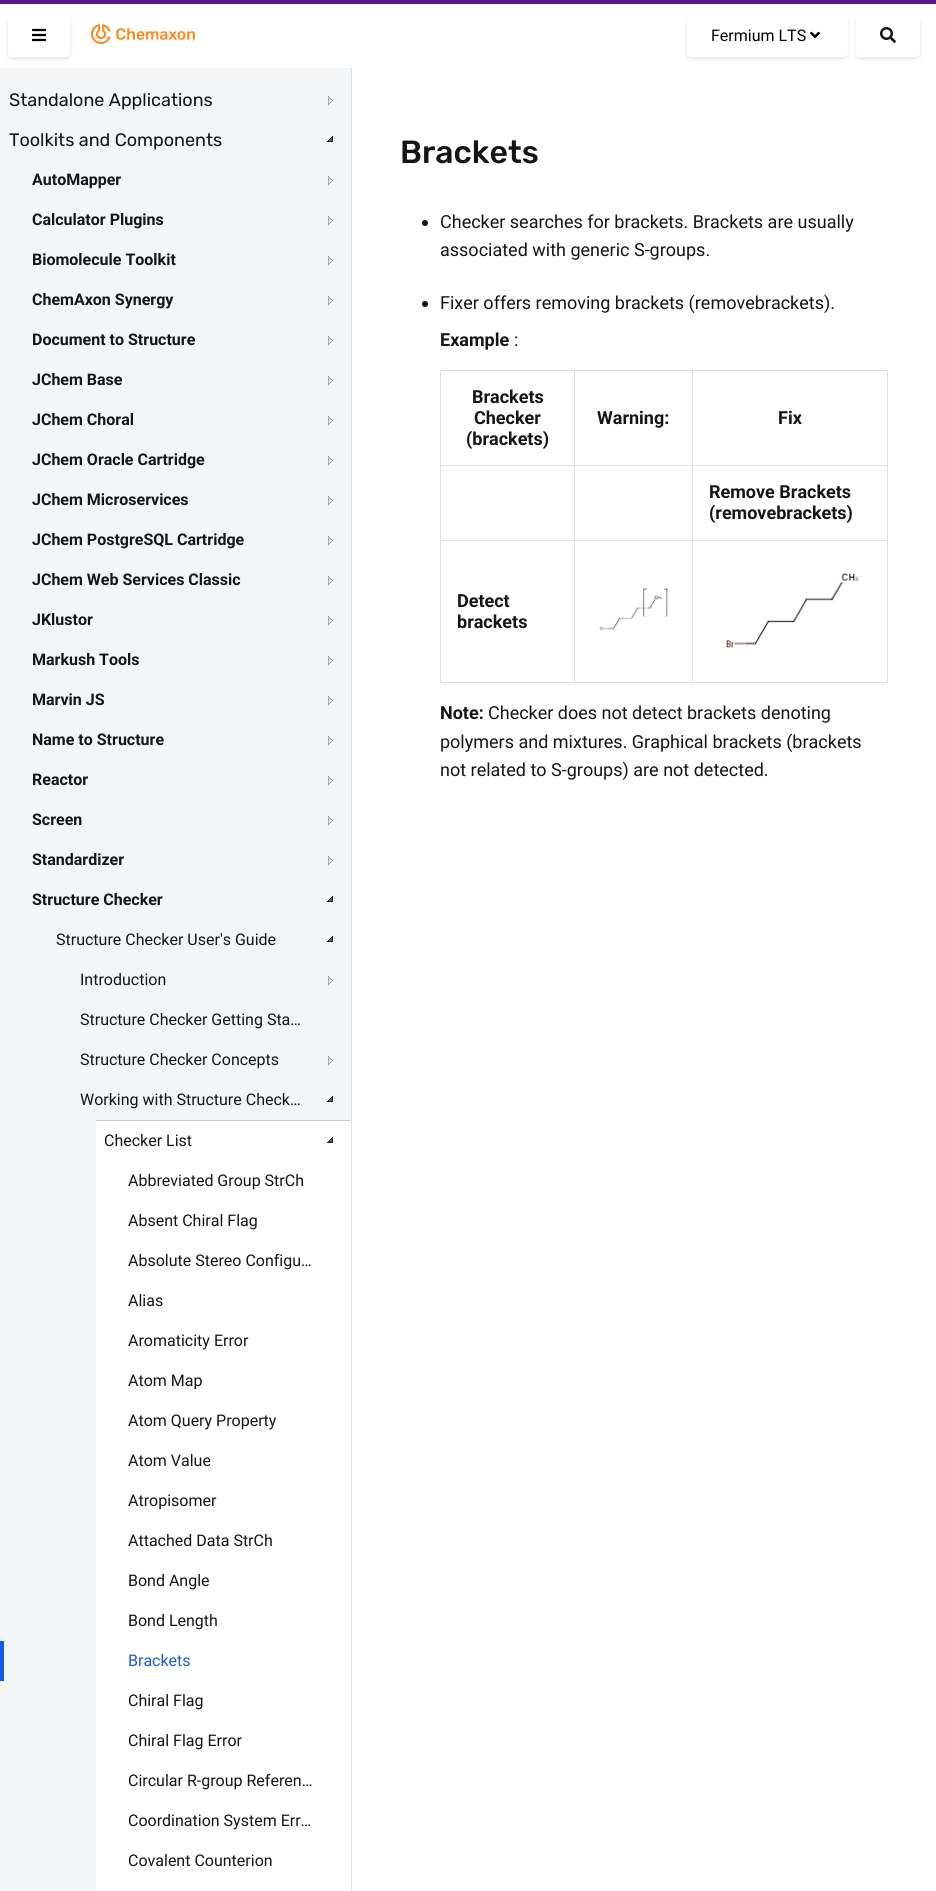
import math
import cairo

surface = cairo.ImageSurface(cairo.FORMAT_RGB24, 936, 1891)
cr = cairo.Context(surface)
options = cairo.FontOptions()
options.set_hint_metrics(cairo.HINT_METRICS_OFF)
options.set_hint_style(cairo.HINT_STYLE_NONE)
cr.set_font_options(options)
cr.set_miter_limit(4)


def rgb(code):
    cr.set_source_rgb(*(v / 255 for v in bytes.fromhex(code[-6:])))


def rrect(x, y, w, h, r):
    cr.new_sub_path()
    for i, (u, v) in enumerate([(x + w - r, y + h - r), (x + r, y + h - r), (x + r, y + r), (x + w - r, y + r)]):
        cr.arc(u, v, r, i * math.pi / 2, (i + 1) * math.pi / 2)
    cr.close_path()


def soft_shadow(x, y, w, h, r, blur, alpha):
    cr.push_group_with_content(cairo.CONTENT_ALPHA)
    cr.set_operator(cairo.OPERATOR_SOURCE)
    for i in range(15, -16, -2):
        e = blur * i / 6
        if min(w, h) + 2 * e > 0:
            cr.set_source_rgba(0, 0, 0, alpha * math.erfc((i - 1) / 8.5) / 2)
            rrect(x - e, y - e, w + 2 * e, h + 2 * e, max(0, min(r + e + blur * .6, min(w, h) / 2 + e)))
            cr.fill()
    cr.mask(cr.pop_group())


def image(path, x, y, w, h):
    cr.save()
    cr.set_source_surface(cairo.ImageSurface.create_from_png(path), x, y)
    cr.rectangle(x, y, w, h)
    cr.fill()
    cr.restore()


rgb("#ffffff")
cr.paint()
for x, y, w, h, color in [
    (0, 0, 936, 4, "#5a1788"),
    (351, 64, 1, 1827, "#dae1e7"),
    (351, 64, 1, 4, "#ffffff"),
]:
    rgb(color)
    cr.rectangle(x, y, w, h)
    cr.fill()
cr.save()
cr.set_fill_rule(cairo.FILL_RULE_EVEN_ODD)
cr.new_path()
cr.move_to(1, 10)
cr.line_to(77, 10)
cr.line_to(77, 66)
cr.line_to(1, 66)
cr.close_path()
cr.move_to(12, 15)
cr.line_to(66, 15)
cr.curve_to(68, 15, 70, 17, 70, 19)
cr.line_to(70, 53)
cr.curve_to(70, 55, 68, 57, 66, 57)
cr.line_to(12, 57)
cr.curve_to(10, 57, 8, 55, 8, 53)
cr.line_to(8, 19)
cr.curve_to(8, 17, 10, 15, 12, 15)
cr.close_path()
cr.clip()
rgb("#000000")
soft_shadow(8, 17, 62, 42, 4, 2, 0.1)
cr.restore()
image("img/1.png", 32, 28, 14, 14)
image("img/2.png", 90, 24, 106, 20)
cr.save()
cr.set_fill_rule(cairo.FILL_RULE_EVEN_ODD)
cr.new_path()
cr.move_to(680, 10)
cr.line_to(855, 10)
cr.line_to(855, 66)
cr.line_to(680, 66)
cr.close_path()
cr.move_to(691, 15)
cr.line_to(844, 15)
cr.curve_to(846, 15, 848, 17, 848, 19)
cr.line_to(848, 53)
cr.curve_to(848, 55, 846, 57, 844, 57)
cr.line_to(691, 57)
cr.curve_to(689, 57, 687, 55, 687, 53)
cr.line_to(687, 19)
cr.curve_to(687, 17, 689, 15, 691, 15)
cr.close_path()
cr.clip()
rgb("#000000")
soft_shadow(687, 17, 161, 42, 4, 2, 0.1)
cr.restore()
image("img/3.png", 810, 31, 10, 8)
cr.save()
cr.set_fill_rule(cairo.FILL_RULE_EVEN_ODD)
cr.new_path()
cr.move_to(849, 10)
cr.line_to(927, 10)
cr.line_to(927, 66)
cr.line_to(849, 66)
cr.close_path()
cr.move_to(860, 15)
cr.line_to(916, 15)
cr.curve_to(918, 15, 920, 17, 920, 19)
cr.line_to(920, 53)
cr.curve_to(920, 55, 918, 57, 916, 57)
cr.line_to(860, 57)
cr.curve_to(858, 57, 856, 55, 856, 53)
cr.line_to(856, 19)
cr.curve_to(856, 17, 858, 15, 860, 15)
cr.close_path()
cr.clip()
rgb("#000000")
soft_shadow(856, 17, 64, 42, 4, 2, 0.1)
cr.restore()
image("img/4.png", 880, 27, 16, 16)
rgb("#f4f5f7")
cr.rectangle(0, 68, 351, 1823)
cr.fill()
image("img/5.png", 328, 96, 5, 9)
image("img/6.png", 327, 136, 6, 6)
image("img/5.png", 328, 176, 5, 9)
image("img/5.png", 328, 216, 5, 9)
image("img/5.png", 328, 256, 5, 9)
image("img/5.png", 328, 296, 5, 9)
image("img/5.png", 328, 336, 5, 9)
image("img/5.png", 328, 376, 5, 9)
image("img/5.png", 328, 416, 5, 9)
image("img/5.png", 328, 456, 5, 9)
image("img/5.png", 328, 496, 5, 9)
image("img/5.png", 328, 536, 5, 9)
image("img/5.png", 328, 576, 5, 9)
image("img/5.png", 328, 616, 5, 9)
image("img/5.png", 328, 656, 5, 9)
image("img/5.png", 328, 696, 5, 9)
image("img/5.png", 328, 736, 5, 9)
image("img/5.png", 328, 776, 5, 9)
image("img/5.png", 328, 816, 5, 9)
image("img/5.png", 328, 856, 5, 9)
image("img/6.png", 327, 896, 6, 6)
image("img/6.png", 327, 936, 6, 6)
image("img/5.png", 328, 976, 5, 9)
image("img/5.png", 328, 1056, 5, 9)
image("img/6.png", 327, 1096, 6, 6)
rgb("#ffffff")
cr.rectangle(96, 1121, 255, 770)
cr.fill()
rgb("#cccccc")
cr.rectangle(96, 1120, 255, 1)
cr.fill()
image("img/7.png", 327, 1137, 6, 6)
rgb("#185add")
cr.rectangle(0, 1641, 4, 40)
cr.fill()
rgb("#131517")
cr.arc(425, 223, 3, 0, 2 * math.pi)
cr.fill()
cr.arc(425, 304, 3, 0, 2 * math.pi)
cr.fill()
for x, y, w, h, color in [
    (440, 370, 448, 1, "#dae1e7"),
    (440, 465, 448, 1, "#dae1e7"),
    (440, 540, 448, 1, "#dae1e7"),
    (887, 540, 1, 143, "#dae1e7"),
    (887, 465, 1, 76, "#dae1e7"),
    (887, 370, 1, 96, "#dae1e7"),
    (440, 682, 448, 1, "#dae1e7"),
    (440, 540, 1, 143, "#dae1e7"),
    (440, 465, 1, 76, "#dae1e7"),
    (440, 370, 1, 96, "#dae1e7"),
    (574, 370, 1, 313, "#dae1e7"),
]:
    rgb(color)
    cr.rectangle(x, y, w, h)
    cr.fill()
image("img/8.png", 599, 588, 69, 43)
cr.rectangle(692, 370, 1, 313)
cr.fill()
image("img/9.png", 726, 573, 133, 75)
cr.select_font_face("Roboto")
cr.set_font_size(16)
rgb("#000000")
cr.move_to(711, 41)
cr.show_text("Fermium LTS")
cr.select_font_face("Rubik")
cr.set_font_size(18)
rgb("#131517")
cr.move_to(9, 106)
cr.show_text("Standalone Applications")
cr.move_to(9, 146)
cr.show_text("Toolkits and Components")
cr.select_font_face("Roboto", cairo.FONT_SLANT_NORMAL, cairo.FONT_WEIGHT_BOLD)
cr.set_font_size(16)
for x, y, s in [
    (32, 185, "AutoMapper"),
    (32, 225, "Calculator Plugins"),
    (32, 265, "Biomolecule Toolkit"),
    (32, 305, "ChemAxon Synergy"),
    (32, 345, "Document to Structure"),
    (32, 385, "JChem Base"),
    (32, 425, "JChem Choral"),
    (32, 465, "JChem Oracle Cartridge"),
    (32, 505, "JChem Microservices"),
    (32, 545, "JChem PostgreSQL Cartridge"),
    (32, 585, "JChem Web Services Classic"),
    (32, 625, "JKlustor"),
    (32, 665, "Markush Tools"),
    (32, 705, "Marvin JS"),
    (32, 745, "Name to Structure"),
    (32, 785, "Reactor"),
    (32, 825, "Screen"),
    (32, 865, "Standardizer"),
    (32, 905, "Structure Checker"),
]:
    cr.move_to(x, y)
    cr.show_text(s)
cr.select_font_face("Roboto")
for x, y, s in [
    (56, 945, "Structure Checker User's Guide"),
    (80, 985, "Introduction"),
    (80, 1025, "Structure Checker Getting Sta…"),
    (80, 1065, "Structure Checker Concepts"),
    (80, 1105, "Working with Structure Check…"),
    (104, 1146, "Checker List"),
    (128, 1186, "Abbreviated Group StrCh"),
    (128, 1226, "Absent Chiral Flag"),
    (128, 1266, "Absolute Stereo Configu…"),
    (128, 1306, "Alias"),
    (128, 1346, "Aromaticity Error"),
    (128, 1386, "Atom Map"),
    (128, 1426, "Atom Query Property"),
    (128, 1466, "Atom Value"),
    (128, 1506, "Atropisomer"),
    (128, 1546, "Attached Data StrCh"),
    (128, 1586, "Bond Angle"),
    (128, 1626, "Bond Length"),
]:
    cr.move_to(x, y)
    cr.show_text(s)
rgb("#185add")
cr.move_to(128, 1666)
cr.show_text("Brackets")
rgb("#131517")
for x, y, s in [
    (128, 1706, "Chiral Flag"),
    (128, 1746, "Chiral Flag Error"),
    (128, 1786, "Circular R-group Referen…"),
    (128, 1826, "Coordination System Err…"),
    (128, 1866, "Covalent Counterion"),
]:
    cr.move_to(x, y)
    cr.show_text(s)
cr.select_font_face("Rubik Medium")
cr.set_font_size(32)
cr.move_to(400, 163)
cr.show_text("Brackets")
cr.select_font_face("Roboto")
cr.set_font_size(18)
for x, y, s in [
    (440, 228, "Checker searches for brackets. Brackets are usually"),
    (440, 256, "associated with generic S-groups."),
    (440, 309, "Fixer offers removing brackets (removebrackets)."),
]:
    cr.move_to(x, y)
    cr.show_text(s)
cr.select_font_face("Roboto", cairo.FONT_SLANT_NORMAL, cairo.FONT_WEIGHT_BOLD)
cr.move_to(440, 346)
cr.show_text("Example")
cr.select_font_face("Roboto")
cr.move_to(514, 346)
cr.show_text(":")
cr.select_font_face("Roboto", cairo.FONT_SLANT_NORMAL, cairo.FONT_WEIGHT_BOLD)
for x, y, s in [
    (472, 403, "Brackets"),
    (474, 424, "Checker"),
    (466, 445, "(brackets)"),
    (597, 424, "Warning:"),
    (778, 424, "Fix"),
    (709, 498, "Remove Brackets"),
    (709, 519, "(removebrackets)"),
    (457, 607, "Detect"),
    (457, 628, "brackets"),
    (440, 719, "Note:"),
]:
    cr.move_to(x, y)
    cr.show_text(s)
cr.select_font_face("Roboto")
for x, y, s in [
    (488, 719, "Checker does not detect brackets denoting"),
    (440, 748, "polymers and mixtures. Graphical brackets (brackets"),
    (440, 776, "not related to S-groups) are not detected."),
]:
    cr.move_to(x, y)
    cr.show_text(s)
surface.write_to_png("page.png")
